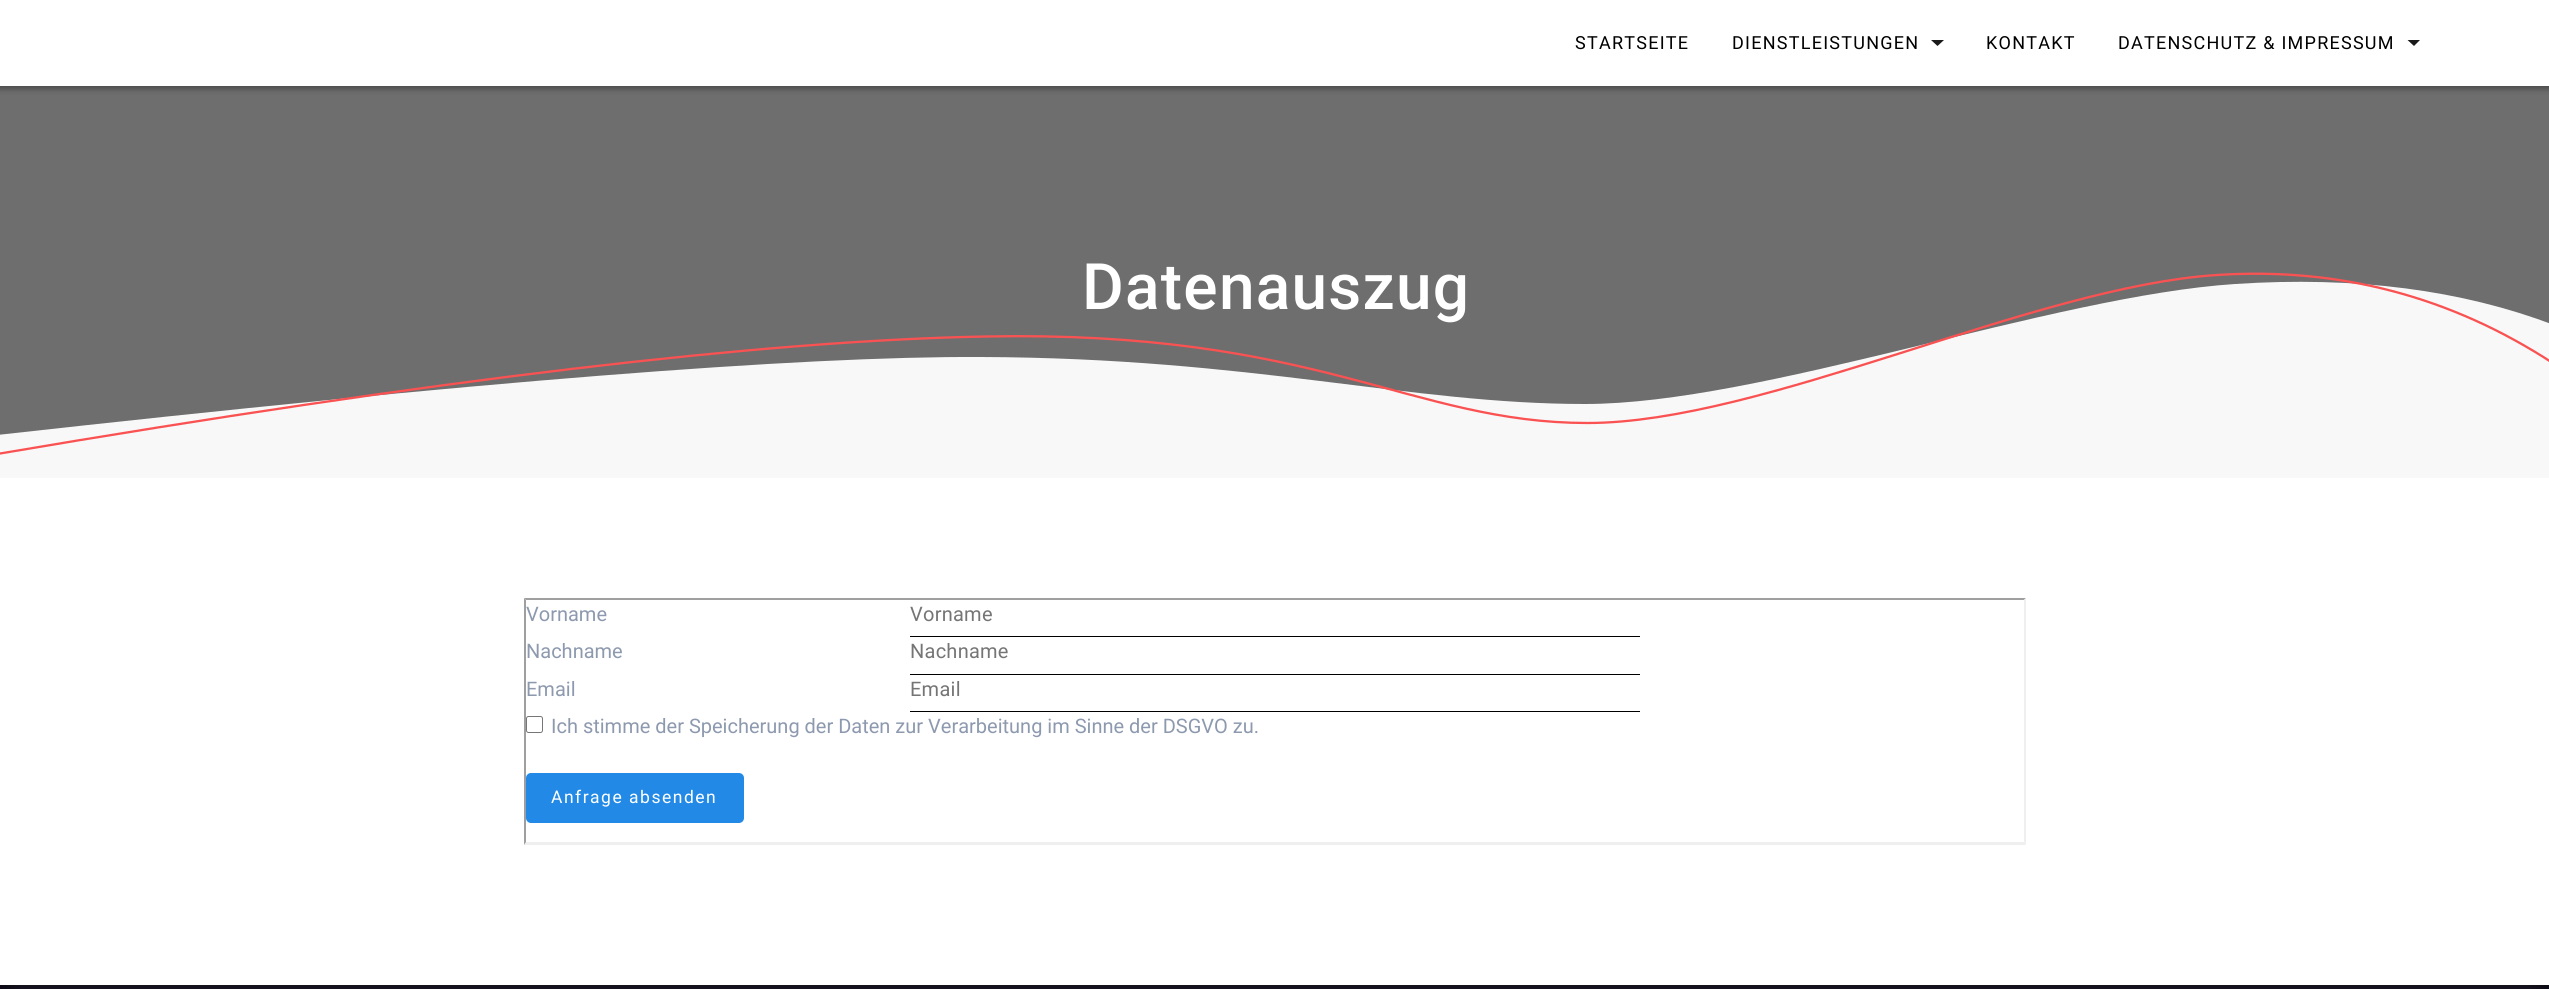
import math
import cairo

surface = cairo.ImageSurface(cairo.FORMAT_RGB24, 2549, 989)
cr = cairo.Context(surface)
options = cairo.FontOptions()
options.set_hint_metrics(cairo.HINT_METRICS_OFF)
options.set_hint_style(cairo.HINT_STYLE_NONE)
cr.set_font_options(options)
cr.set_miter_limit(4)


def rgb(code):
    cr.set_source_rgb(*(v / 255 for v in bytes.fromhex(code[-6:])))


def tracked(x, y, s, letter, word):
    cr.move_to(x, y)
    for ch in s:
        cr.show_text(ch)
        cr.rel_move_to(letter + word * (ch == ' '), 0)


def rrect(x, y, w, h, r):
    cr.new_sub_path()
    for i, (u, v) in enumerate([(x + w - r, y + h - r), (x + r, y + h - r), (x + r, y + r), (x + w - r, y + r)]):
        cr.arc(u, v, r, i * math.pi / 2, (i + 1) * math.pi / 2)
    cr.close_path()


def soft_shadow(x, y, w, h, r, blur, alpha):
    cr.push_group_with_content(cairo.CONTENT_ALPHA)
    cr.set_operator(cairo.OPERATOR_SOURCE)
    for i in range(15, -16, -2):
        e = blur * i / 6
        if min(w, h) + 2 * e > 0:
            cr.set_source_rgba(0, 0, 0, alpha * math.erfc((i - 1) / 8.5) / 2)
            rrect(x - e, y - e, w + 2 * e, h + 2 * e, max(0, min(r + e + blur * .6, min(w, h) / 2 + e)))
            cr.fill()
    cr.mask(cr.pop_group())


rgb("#0b0815")
cr.paint()
rgb("#313439")
soft_shadow(13, -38, 2525, 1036, 0, 12.5, 0.3)
rgb("#6e6e6e")
cr.rectangle(0, 86, 2549, 349)
cr.fill()
rgb("#000000")
soft_shadow(-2, -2, 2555, 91, 0, 3, 0.33)
rgb("#ffffff")
cr.rectangle(0, 0, 2549, 86)
cr.fill()
rgb("#1a1a1a")
cr.new_path()
cr.move_to(1931, 40)
cr.line_to(1937.5, 46)
cr.line_to(1944, 40)
cr.close_path()
cr.fill()
cr.new_path()
cr.move_to(2407.5, 40)
cr.line_to(2414, 46)
cr.line_to(2420, 40)
cr.close_path()
cr.fill()
rgb("#f8f8f8")
cr.new_path()
cr.move_to(-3, 435)
cr.curve_to(472, 382, 800, 356, 981, 357)
cr.curve_to(1253, 358, 1409, 404, 1585, 404)
cr.curve_to(1760, 404, 2052, 296, 2235, 284)
cr.curve_to(2356, 276, 2462, 290, 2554, 325)
cr.line_to(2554, 480)
cr.line_to(-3, 483)
cr.close_path()
cr.fill()
cr.new_path()
cr.move_to(-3, 454)
cr.curve_to(435, 379.5, 764.5, 340.5, 985.5, 336.5)
cr.curve_to(1317, 330, 1411.5, 423, 1587.5, 423)
cr.curve_to(1763.5, 423, 2034.5, 286.5, 2217, 275)
cr.curve_to(2339, 267, 2451, 296.5, 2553.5, 363.5)
rgb("#fa5252")
cr.set_line_width(2.3)
cr.stroke()
rgb("#ffffff")
cr.rectangle(0, 478, 2549, 507)
cr.fill()
rgb("#9f9f9f")
cr.new_path()
cr.move_to(524, 598)
cr.line_to(2026, 598)
cr.line_to(2024, 600)
cr.line_to(526, 600)
cr.close_path()
cr.fill()
rgb("#efefef")
cr.new_path()
cr.move_to(2026, 598)
cr.line_to(2026, 845)
cr.line_to(2024, 842)
cr.line_to(2024, 600)
cr.close_path()
cr.fill()
cr.new_path()
cr.move_to(2026, 845)
cr.line_to(524, 845)
cr.line_to(526, 842)
cr.line_to(2024, 842)
cr.close_path()
cr.fill()
rgb("#9f9f9f")
cr.new_path()
cr.move_to(524, 845)
cr.line_to(524, 598)
cr.line_to(526, 600)
cr.line_to(526, 842)
cr.close_path()
cr.fill()
for x, y, w, h, color in [
    (910, 636, 730, 1, "#000000"),
    (910, 674, 730, 1, "#000000"),
    (910, 711, 730, 1, "#000000"),
]:
    rgb(color)
    cr.rectangle(x, y, w, h)
    cr.fill()
rrect(526.5, 716.5, 16, 16, 2)
rgb("#767676")
cr.set_line_width(1)
cr.stroke()
rgb("#228ae6")
rrect(526, 773, 218, 50, 5)
cr.fill()
cr.select_font_face("Roboto")
cr.set_font_size(18)
rgb("#000000")
for x, y, s in [
    (1575, 49, "STARTSEITE"),
    (1732, 49, "DIENSTLEISTUNGEN"),
    (1986, 49, "KONTAKT"),
    (2118, 49, "DATENSCHUTZ & IMPRESSUM"),
]:
    tracked(x, y, s, 1.25, 0)
cr.select_font_face("Roboto Medium")
cr.set_font_size(64)
rgb("#ffffff")
tracked(1082, 309, "Datenauszug", 1.25, 0)
cr.select_font_face("Roboto")
cr.set_font_size(20)
rgb("#8d99ae")
cr.move_to(526, 621)
cr.show_text("Vorname")
rgb("#757575")
tracked(910, 621, "Vorname", 0.25, 0)
rgb("#8d99ae")
cr.move_to(526, 658)
cr.show_text("Nachname")
rgb("#757575")
tracked(910, 658, "Nachname", 0.25, 0)
rgb("#8d99ae")
cr.move_to(526, 696)
cr.show_text("Email")
rgb("#757575")
tracked(910, 696, "Email", 0.25, 0)
rgb("#8d99ae")
cr.move_to(551, 733)
cr.show_text("Ich stimme der Speicherung der Daten zur Verarbeitung im Sinne der DSGVO zu.")
cr.set_font_size(17.5)
rgb("#ffffff")
tracked(551, 803, "Anfrage absenden", 1.5, 0)
surface.write_to_png("page.png")
